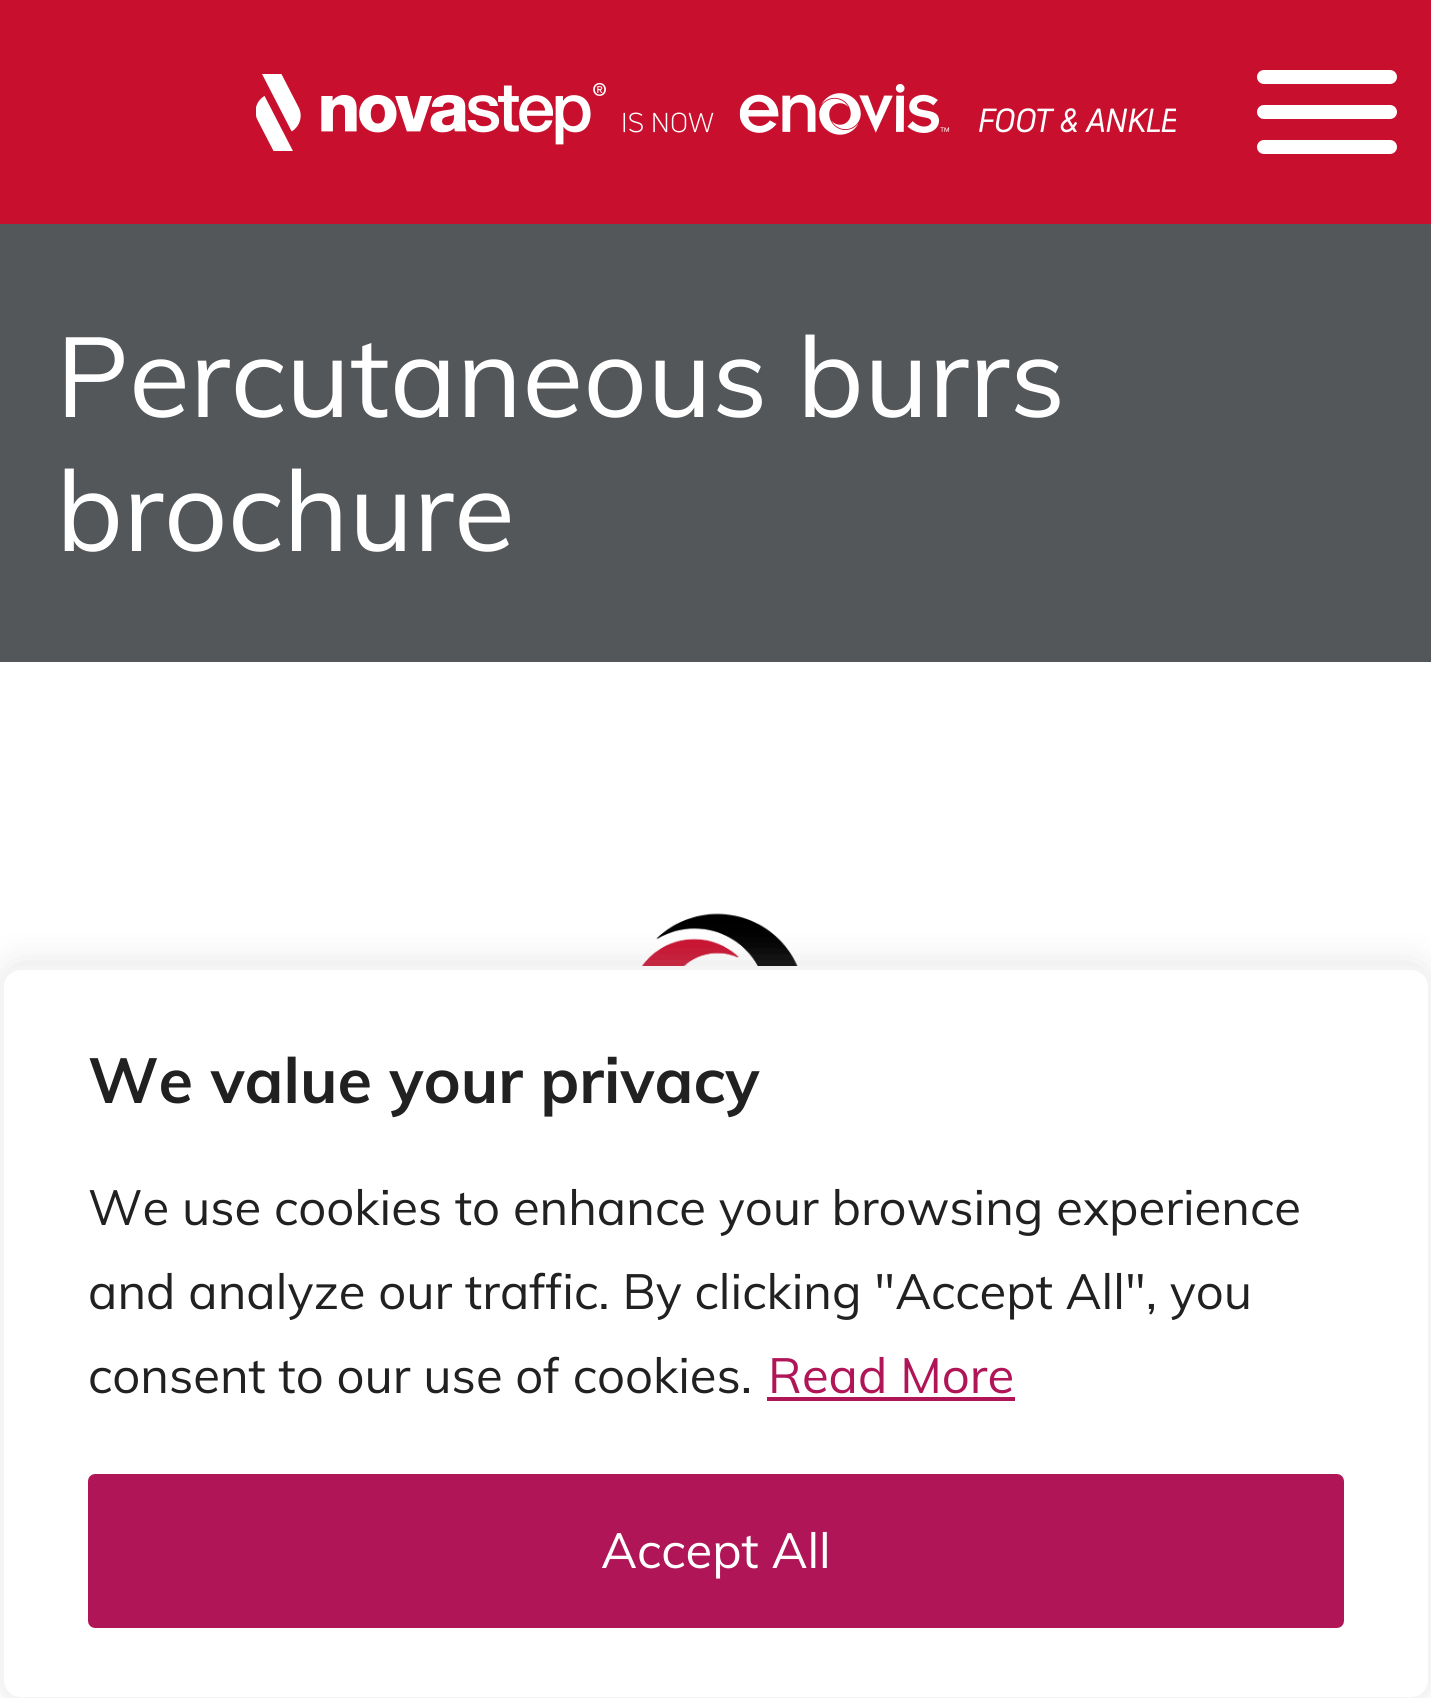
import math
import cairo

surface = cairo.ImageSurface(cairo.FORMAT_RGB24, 1431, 1698)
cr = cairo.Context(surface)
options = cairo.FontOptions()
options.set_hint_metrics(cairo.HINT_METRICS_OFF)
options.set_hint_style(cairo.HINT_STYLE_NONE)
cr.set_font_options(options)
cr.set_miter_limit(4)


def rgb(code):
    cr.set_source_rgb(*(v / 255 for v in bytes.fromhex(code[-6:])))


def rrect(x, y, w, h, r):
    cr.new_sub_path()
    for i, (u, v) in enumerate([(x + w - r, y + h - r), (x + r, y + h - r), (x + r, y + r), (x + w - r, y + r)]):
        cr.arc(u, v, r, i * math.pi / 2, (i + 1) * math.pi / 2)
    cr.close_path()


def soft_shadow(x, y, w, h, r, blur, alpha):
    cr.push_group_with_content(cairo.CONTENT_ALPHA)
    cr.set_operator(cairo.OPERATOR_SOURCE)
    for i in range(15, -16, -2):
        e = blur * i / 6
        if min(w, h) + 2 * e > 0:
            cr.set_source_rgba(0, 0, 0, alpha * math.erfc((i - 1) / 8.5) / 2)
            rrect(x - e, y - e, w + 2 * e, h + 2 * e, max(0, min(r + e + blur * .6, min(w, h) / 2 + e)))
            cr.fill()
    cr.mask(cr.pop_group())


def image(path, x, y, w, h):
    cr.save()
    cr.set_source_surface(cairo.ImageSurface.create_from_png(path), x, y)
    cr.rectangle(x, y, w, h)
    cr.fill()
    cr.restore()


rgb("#ffffff")
cr.paint()
rgb("#c8102e")
cr.rectangle(0, 0, 1431, 224)
cr.fill()
image("img/1.png", 256, 74, 920, 77)
rgb("#ffffff")
rrect(1257, 70, 140, 14, 7)
cr.fill()
rrect(1257, 105, 140, 14, 7)
cr.fill()
rrect(1257, 140, 140, 14, 7)
cr.fill()
rgb("#53575a")
cr.rectangle(0, 224, 1431, 438)
cr.fill()
image("img/2.png", 641, 913, 157, 53)
rgb("#acabab")
soft_shadow(0, 963, 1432, 735, 21, 17.5, 0.3)
rgb("#ffffff")
rrect(2, 968, 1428, 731, 19)
cr.fill_preserve()
rgb("#f4f4f4")
cr.set_line_width(4)
cr.stroke()
rgb("#b01657")
cr.rectangle(767, 1397, 248, 4)
cr.fill()
rrect(91.5, 1477.5, 1249, 147, 3.5)
cr.fill_preserve()
cr.set_line_width(7)
cr.stroke()
cr.select_font_face("Muli")
cr.set_font_size(112)
rgb("#ffffff")
cr.move_to(56, 417)
cr.show_text("Percutaneous burrs")
cr.move_to(56, 551)
cr.show_text("brochure")
cr.select_font_face("Muli", cairo.FONT_SLANT_NORMAL, cairo.FONT_WEIGHT_BOLD)
cr.set_font_size(63)
rgb("#212121")
cr.move_to(88, 1103)
cr.show_text("We value your privacy")
cr.select_font_face("Muli")
cr.set_font_size(49)
for x, y, s in [
    (88, 1225, "We use cookies to enhance your browsing experience"),
    (88, 1309, "and analyze our traffic. By clicking \"Accept All\", you"),
    (88, 1393, "consent to our use of cookies."),
]:
    cr.move_to(x, y)
    cr.show_text(s)
rgb("#b01657")
cr.move_to(768, 1393)
cr.show_text("Read More")
rgb("#ffffff")
cr.move_to(601, 1568)
cr.show_text("Accept All")
surface.write_to_png("page.png")
